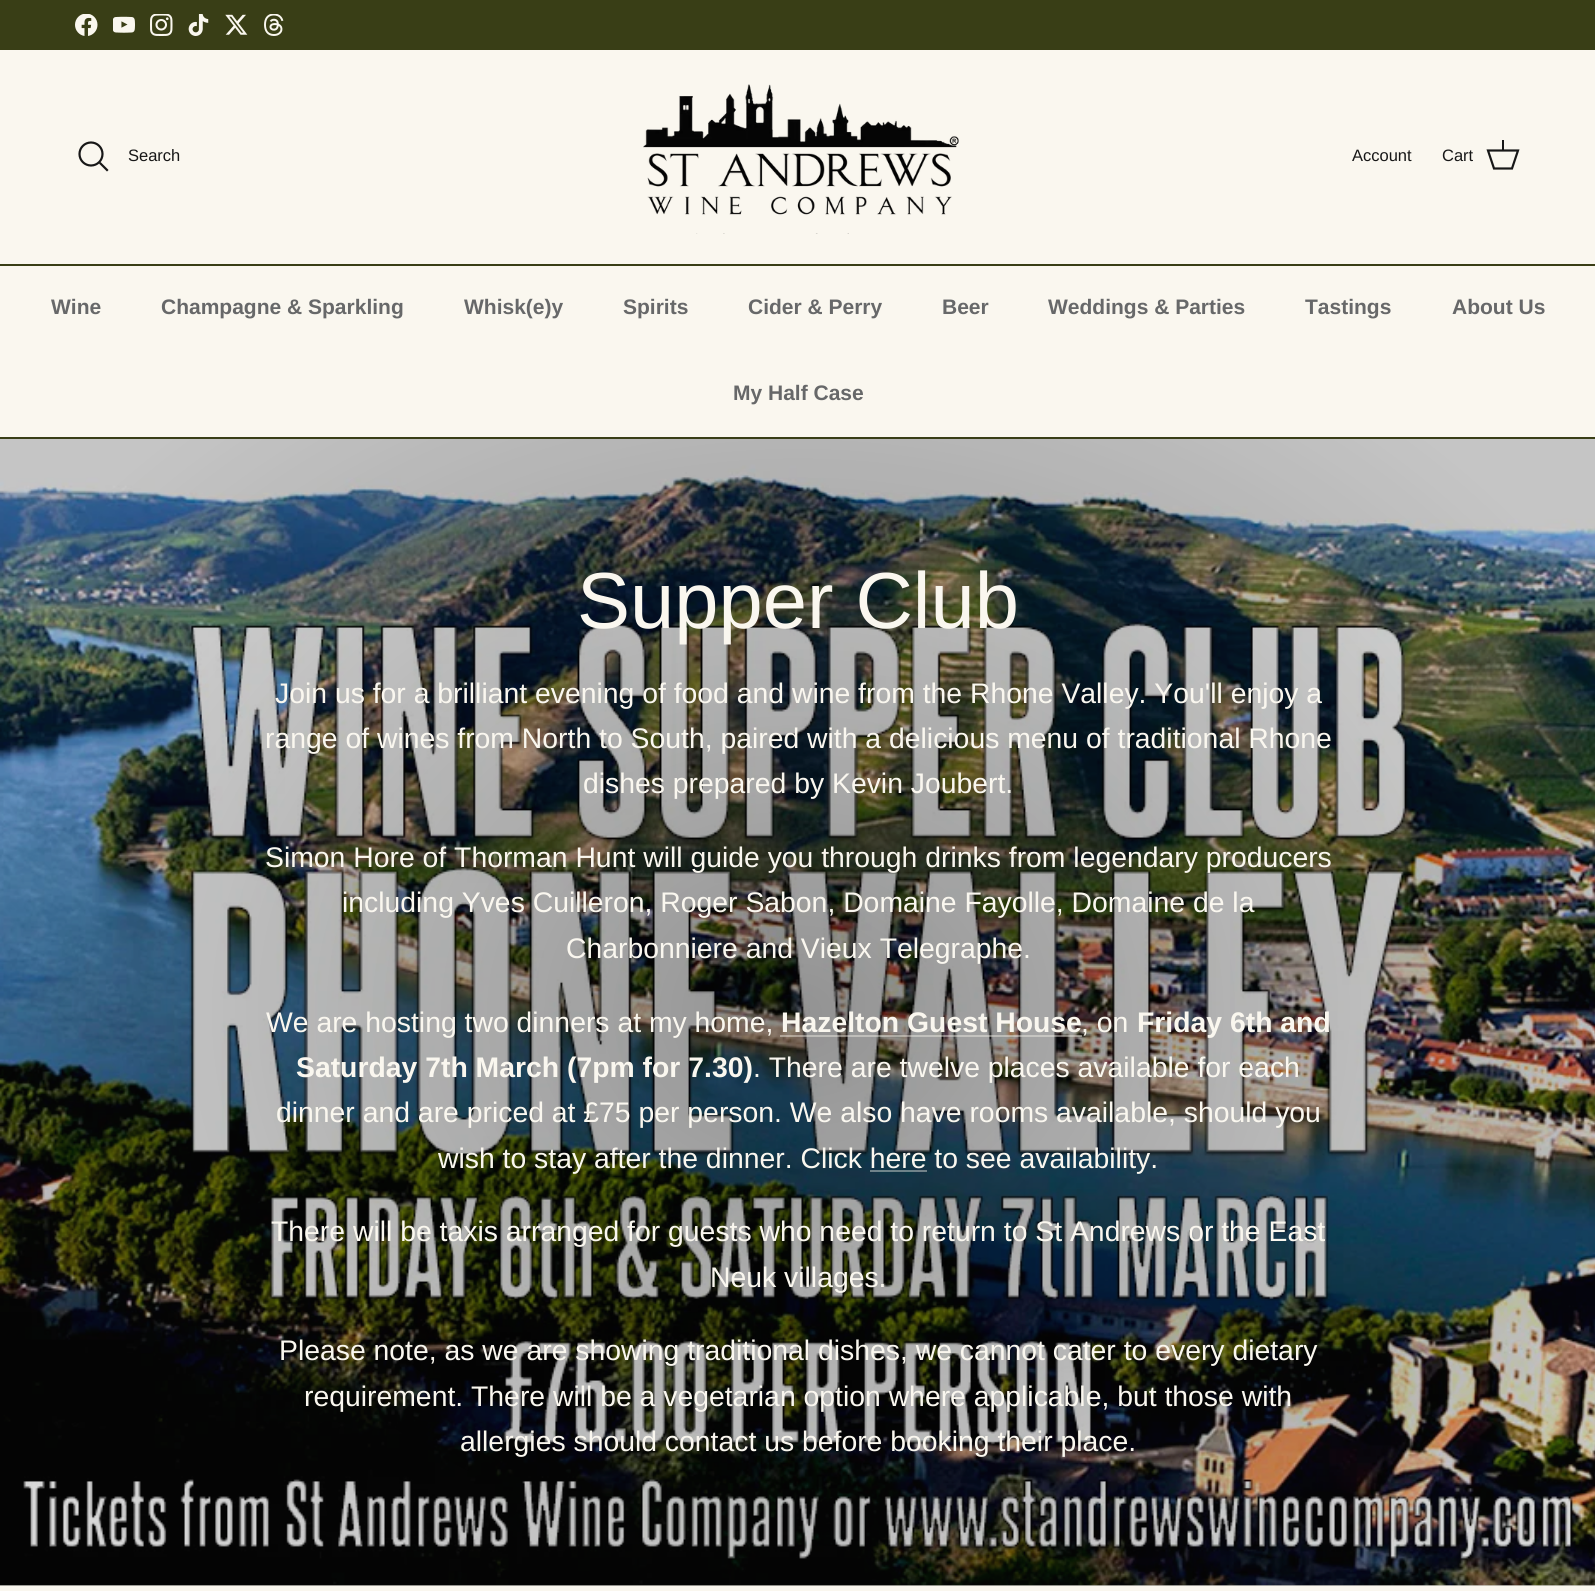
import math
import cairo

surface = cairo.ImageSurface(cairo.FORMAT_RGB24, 1595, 1591)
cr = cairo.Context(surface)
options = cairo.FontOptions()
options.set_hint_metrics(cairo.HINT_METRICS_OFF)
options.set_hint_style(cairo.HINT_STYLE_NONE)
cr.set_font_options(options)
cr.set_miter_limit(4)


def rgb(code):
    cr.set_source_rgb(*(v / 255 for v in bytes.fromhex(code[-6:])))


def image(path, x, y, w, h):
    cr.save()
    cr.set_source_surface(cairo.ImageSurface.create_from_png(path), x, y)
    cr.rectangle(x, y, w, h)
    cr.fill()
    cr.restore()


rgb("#faf7ef")
cr.paint()
rgb("#d3d1ca")
cr.rectangle(0, 1585, 1595, 1)
cr.fill()
rgb("#393e16")
cr.rectangle(0, 0, 1595, 50)
cr.fill()
image("img/1.png", 75, 14, 23, 22)
image("img/2.png", 113, 16, 22, 17)
image("img/3.png", 150, 14, 23, 22)
image("img/4.png", 188, 14, 21, 22)
image("img/5.png", 225, 14, 23, 21)
image("img/6.png", 264, 14, 20, 22)
cr.rectangle(0, 264, 1595, 2)
cr.fill()
cr.arc(91, 154, 11.5, 0, 2 * math.pi)
rgb("#171717")
cr.set_line_width(2.2)
cr.stroke()
cr.new_path()
cr.move_to(100.5, 163.5)
cr.line_to(107, 170)
cr.set_line_cap(cairo.LINE_CAP_SQUARE)
cr.stroke()
image("img/7.png", 643, 84, 316, 150)
cr.new_path()
cr.move_to(1488, 150.5)
cr.line_to(1518, 150.5)
cr.line_to(1512, 168.5)
cr.line_to(1494, 168.5)
cr.close_path()
cr.set_line_cap(cairo.LINE_CAP_BUTT)
cr.stroke()
cr.rectangle(1502, 140, 2, 11)
cr.fill()
rgb("#393e16")
cr.rectangle(0, 437, 1595, 2)
cr.fill()
image("img/8.png", 0, 439, 1595, 1147)
gradient = cairo.RadialGradient(0, 0, 0, 0, 0, 1)
gradient.set_matrix(cairo.Matrix(1 / 1341, 0, 0, 1 / 1108, -1 * 798 / 1341, -1 * 1012 / 1108))
gradient.add_color_stop_rgba(0, 0, 0, 0, 0.32)
gradient.add_color_stop_rgba(0.7, 0, 0, 0, 0)
cr.set_source(gradient)
cr.rectangle(0, 439, 1595, 1147)
cr.fill()
cr.set_source_rgba(0.98, 0.969, 0.937, 0.4)
cr.rectangle(780, 1035, 302, 2)
cr.fill()
cr.select_font_face("Arimo")
cr.set_font_size(16.5)
rgb("#171717")
for x, y, s in [
    (128, 161, "Search"),
    (1352, 161, "Account"),
    (1442, 161, "Cart"),
]:
    cr.move_to(x, y)
    cr.show_text(s)
cr.select_font_face("Arimo", cairo.FONT_SLANT_NORMAL, cairo.FONT_WEIGHT_BOLD)
cr.set_font_size(21)
rgb("#676869")
for x, y, s in [
    (51, 314, "Wine"),
    (161, 314, "Champagne & Sparkling"),
    (464, 314, "Whisk(e)y"),
    (623, 314, "Spirits"),
    (748, 314, "Cider & Perry"),
    (942, 314, "Beer"),
    (1048, 314, "Weddings & Parties"),
    (1305, 314, "Tastings"),
    (1452, 314, "About Us"),
    (733, 400, "My Half Case"),
]:
    cr.move_to(x, y)
    cr.show_text(s)
cr.select_font_face("Arimo")
cr.set_font_size(79.5)
rgb("#faf7ef")
cr.move_to(577, 628)
cr.show_text("Supper Club")
cr.set_font_size(28.35)
for x, y, s in [
    (275, 703, "Join us for a brilliant evening of food and wine from the Rhone Valley. You'll enjoy a"),
    (265, 748, "range of wines from North to South, paired with a delicious menu of traditional Rhone"),
    (583, 793, "dishes prepared by Kevin Joubert."),
    (265, 867, "Simon Hore of Thorman Hunt will guide you through drinks from legendary producers"),
    (342, 912, "including Yves Cuilleron, Roger Sabon, Domaine Fayolle, Domaine de la"),
    (566, 958, "Charbonniere and Vieux Telegraphe."),
    (266, 1032, "We are hosting two dinners at my home,"),
]:
    cr.move_to(x, y)
    cr.show_text(s)
cr.select_font_face("Arimo", cairo.FONT_SLANT_NORMAL, cairo.FONT_WEIGHT_BOLD)
cr.move_to(781, 1032)
cr.show_text("Hazelton Guest House")
cr.select_font_face("Arimo")
cr.move_to(1081, 1032)
cr.show_text(", on")
cr.select_font_face("Arimo", cairo.FONT_SLANT_NORMAL, cairo.FONT_WEIGHT_BOLD)
cr.move_to(1137, 1032)
cr.show_text("Friday 6th and")
cr.move_to(296, 1077)
cr.show_text("Saturday 7th March (7pm for 7.30)")
cr.select_font_face("Arimo")
for x, y, s in [
    (753, 1077, ". There are twelve places available for each"),
    (276, 1122, "dinner and are priced at £75 per person. We also have rooms available, should you"),
    (438, 1168, "wish to stay after the dinner. Click here to see availability."),
]:
    cr.move_to(x, y)
    cr.show_text(s)
cr.set_source_rgba(0.98, 0.969, 0.937, 0.4)
cr.rectangle(870, 1170, 57, 2)
cr.fill()
rgb("#faf7ef")
for x, y, s in [
    (271, 1241, "There will be taxis arranged for guests who need to return to St Andrews or the East"),
    (710, 1287, "Neuk villages."),
    (279, 1360, "Please note, as we are showing traditional dishes, we cannot cater to every dietary"),
    (304, 1406, "requirement. There will be a vegetarian option where applicable, but those with"),
    (460, 1451, "allergies should contact us before booking their place."),
]:
    cr.move_to(x, y)
    cr.show_text(s)
surface.write_to_png("page.png")
